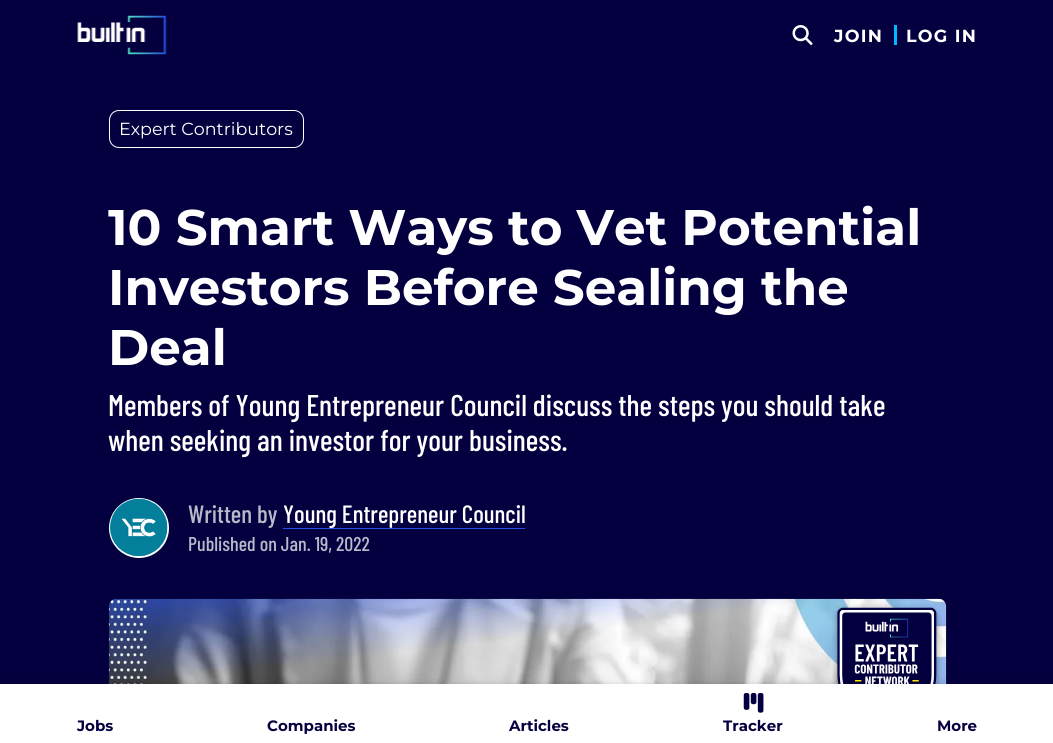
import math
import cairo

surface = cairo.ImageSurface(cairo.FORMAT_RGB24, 1053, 743)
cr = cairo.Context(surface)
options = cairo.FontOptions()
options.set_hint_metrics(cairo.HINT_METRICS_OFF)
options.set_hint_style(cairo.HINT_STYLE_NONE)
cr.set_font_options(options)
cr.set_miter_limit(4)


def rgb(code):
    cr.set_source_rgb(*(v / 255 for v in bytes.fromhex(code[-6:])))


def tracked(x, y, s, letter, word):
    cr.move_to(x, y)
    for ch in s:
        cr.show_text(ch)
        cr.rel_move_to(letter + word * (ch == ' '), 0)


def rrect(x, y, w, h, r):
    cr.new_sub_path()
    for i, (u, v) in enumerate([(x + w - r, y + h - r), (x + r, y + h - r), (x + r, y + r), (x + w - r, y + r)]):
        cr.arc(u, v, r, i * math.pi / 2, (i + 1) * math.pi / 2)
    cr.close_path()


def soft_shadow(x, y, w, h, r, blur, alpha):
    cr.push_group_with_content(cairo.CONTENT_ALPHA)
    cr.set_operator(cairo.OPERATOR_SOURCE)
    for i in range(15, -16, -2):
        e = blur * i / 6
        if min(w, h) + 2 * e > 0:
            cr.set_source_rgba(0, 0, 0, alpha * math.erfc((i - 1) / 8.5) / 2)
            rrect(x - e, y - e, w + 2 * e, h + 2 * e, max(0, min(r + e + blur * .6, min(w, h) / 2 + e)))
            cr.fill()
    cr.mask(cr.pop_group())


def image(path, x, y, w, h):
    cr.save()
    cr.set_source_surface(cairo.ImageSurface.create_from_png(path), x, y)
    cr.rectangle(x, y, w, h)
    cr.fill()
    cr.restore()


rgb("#04003f")
cr.paint()
image("img/1.png", 77, 15, 90, 40)
image("img/2.png", 792, 25, 21, 20)
rgb("#00b9fe")
cr.rectangle(894, 25, 3, 20)
cr.fill()
rrect(109.5, 110.5, 194, 37, 9.5)
rgb("#ffffff")
cr.set_line_width(1)
cr.stroke()
cr.arc(139, 528, 30, 0, 2 * math.pi)
cr.fill()
image("img/3.png", 110, 498, 58, 59)
rgb("#244fe7")
cr.rectangle(283, 528, 242, 1)
cr.fill()
image("img/4.png", 108, 598, 839, 86)
image("img/5.png", 832, 604, 110, 80)
rgb("#000000")
soft_shadow(0, 685, 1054, 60, 0, 6, 0.12)
soft_shadow(0, 686, 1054, 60, 0, 2.5, 0.2)
rgb("#ffffff")
cr.rectangle(0, 684, 1053, 59)
cr.fill()
image("img/6.png", 743, 693, 21, 20)
cr.select_font_face("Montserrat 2 Thin")
cr.set_font_size(17.5)
tracked(834, 42, "JOIN", 1.25, 0)
tracked(906, 42, "LOG IN", 1.25, 0)
cr.select_font_face("Montserrat Thin")
cr.move_to(119, 135)
cr.show_text("Expert Contributors")
cr.select_font_face("Montserrat 2 Thin")
cr.set_font_size(50)
for x, y, s in [
    (108, 245, "10 Smart Ways to Vet Potential"),
    (108, 305, "Investors Before Sealing the"),
    (108, 365, "Deal"),
]:
    cr.move_to(x, y)
    cr.show_text(s)
cr.select_font_face("Barlow Condensed Medium")
cr.set_font_size(30)
cr.move_to(108, 416)
cr.show_text("Members of Young Entrepreneur Council discuss the steps you should take")
cr.move_to(108, 451)
cr.show_text("when seeking an investor for your business.")
cr.set_font_size(25)
rgb("#b7bac9")
cr.move_to(188, 523)
cr.show_text("Written by")
rgb("#ffffff")
cr.move_to(283, 523)
cr.show_text("Young Entrepreneur Council")
cr.set_font_size(20)
rgb("#b7bac9")
cr.move_to(188, 551)
cr.show_text("Published on Jan. 19, 2022")
cr.select_font_face("Montserrat 2 Thin")
cr.set_font_size(15)
rgb("#04003f")
for x, y, s in [
    (77, 731, "Jobs"),
    (267, 731, "Companies"),
    (509, 731, "Articles"),
    (723, 731, "Tracker"),
    (937, 731, "More"),
]:
    cr.move_to(x, y)
    cr.show_text(s)
surface.write_to_png("page.png")
